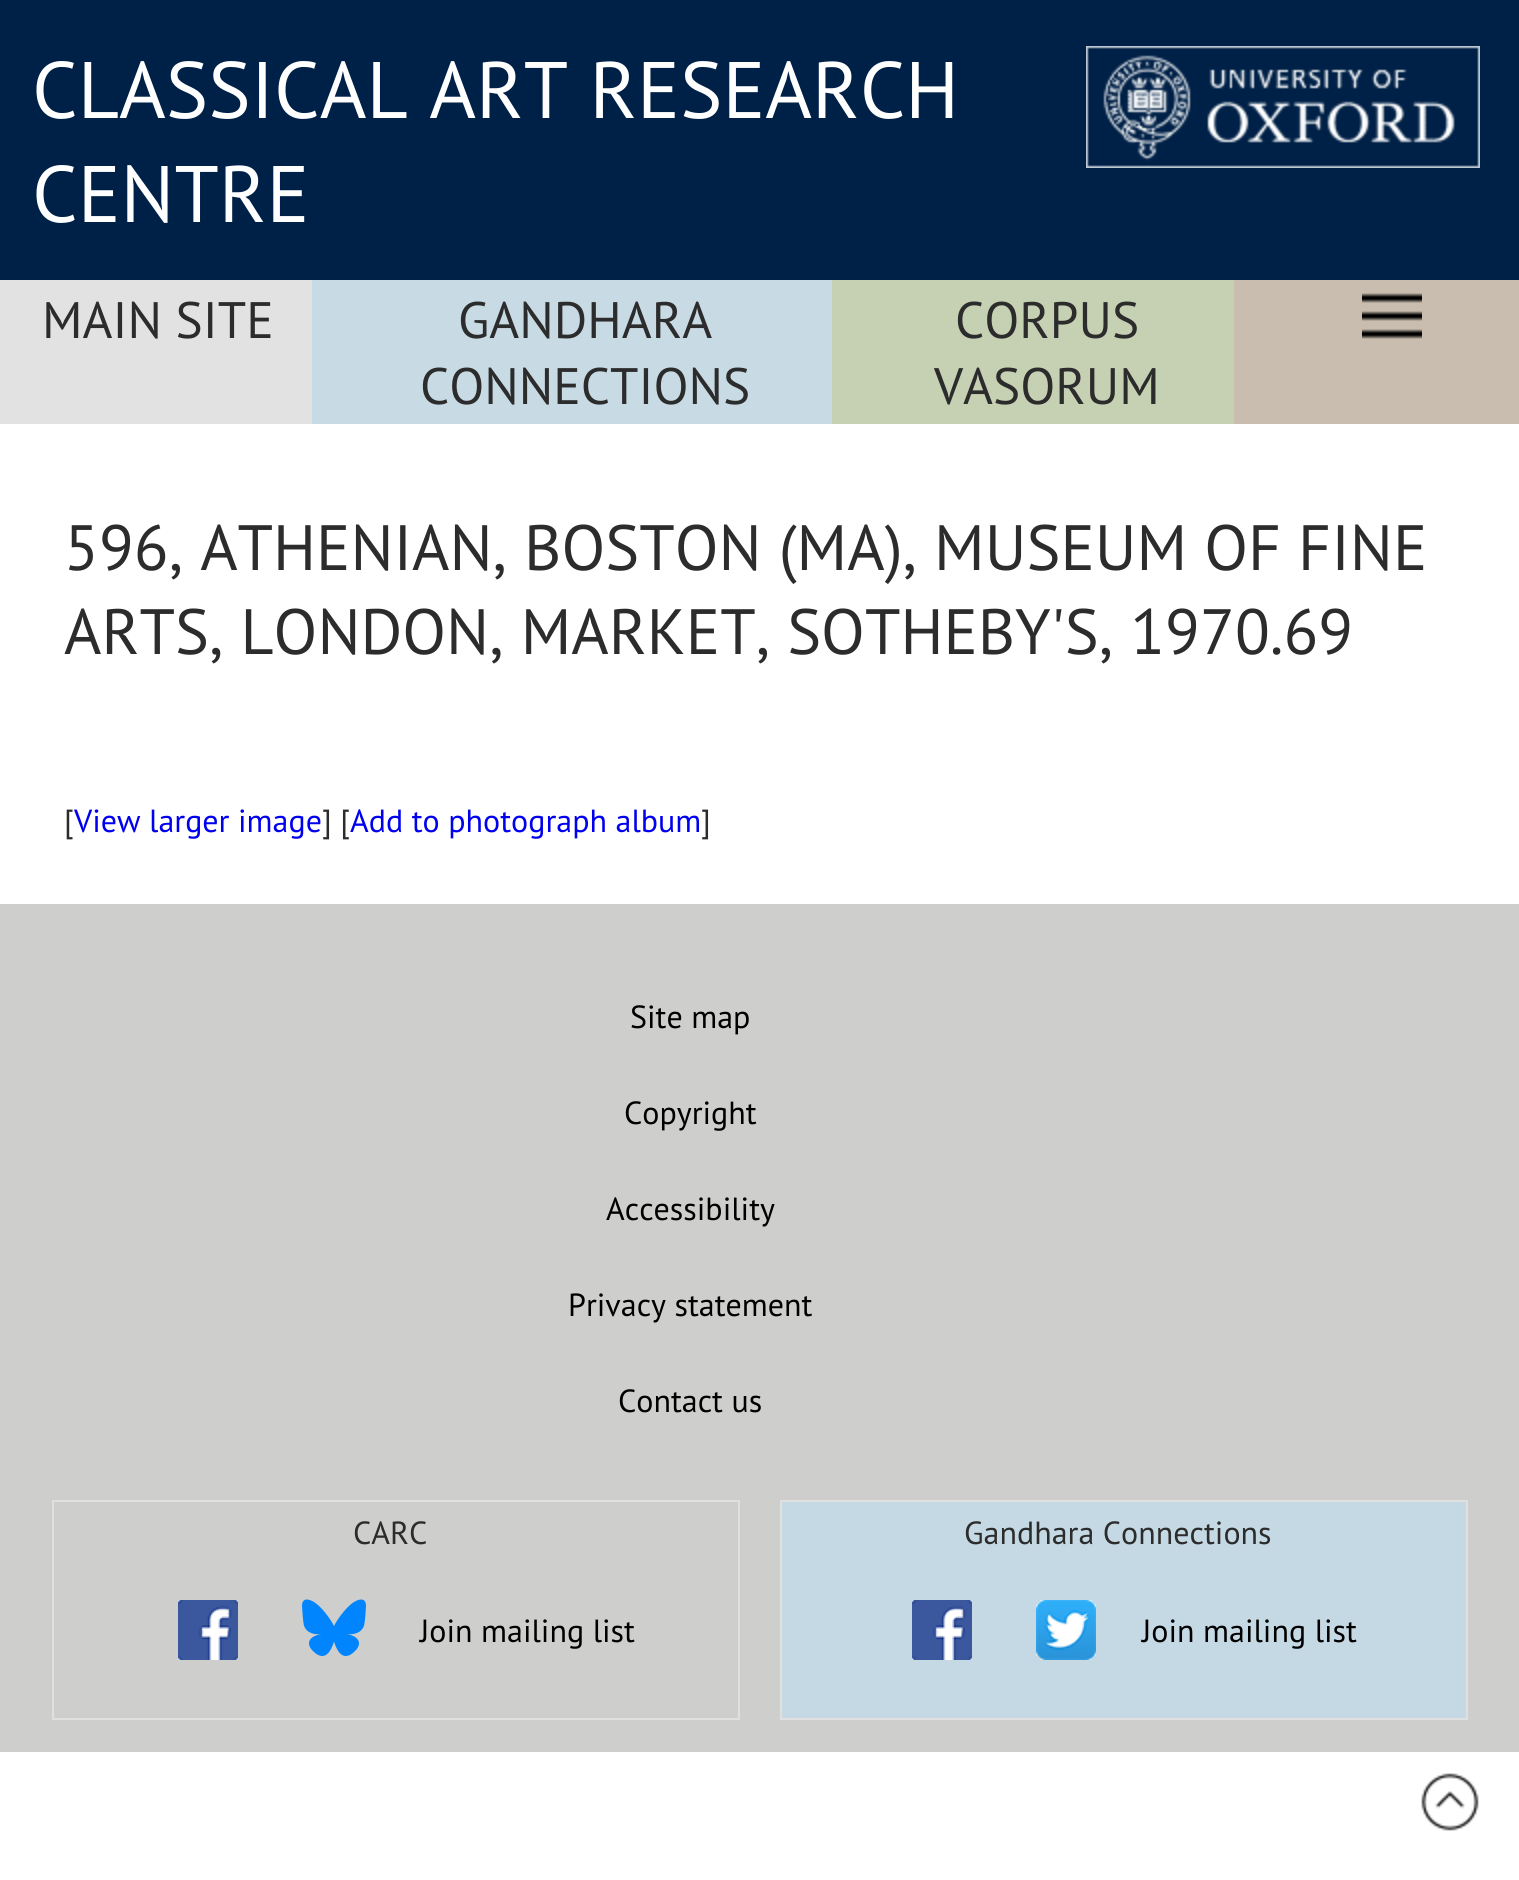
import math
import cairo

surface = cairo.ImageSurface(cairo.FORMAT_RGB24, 1519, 1880)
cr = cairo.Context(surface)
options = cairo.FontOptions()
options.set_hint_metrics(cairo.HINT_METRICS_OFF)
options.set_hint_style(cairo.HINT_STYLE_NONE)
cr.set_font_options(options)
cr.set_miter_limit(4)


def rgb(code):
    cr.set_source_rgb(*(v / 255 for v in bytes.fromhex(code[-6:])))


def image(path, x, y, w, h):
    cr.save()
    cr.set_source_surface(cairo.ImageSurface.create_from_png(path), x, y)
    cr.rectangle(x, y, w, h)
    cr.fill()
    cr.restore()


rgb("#ffffff")
cr.paint()
rgb("#002147")
cr.rectangle(0, 0, 1519, 280)
cr.fill()
image("img/1.png", 1086, 46, 394, 122)
for x, y, w, h, color in [
    (0, 280, 312, 144, "#e2e2e2"),
    (312, 280, 520, 144, "#c8dbe5"),
    (832, 280, 402, 144, "#c5d1b2"),
    (1234, 280, 285, 144, "#c8bdae"),
]:
    rgb(color)
    cr.rectangle(x, y, w, h)
    cr.fill()
image("img/2.png", 1362, 293, 60, 46)
rgb("#cececc")
cr.rectangle(0, 904, 1519, 848)
cr.fill()
cr.rectangle(53, 1501, 686, 218)
rgb("#e0e0e0")
cr.stroke()
image("img/3.png", 178, 1600, 60, 60)
image("img/4.png", 302, 1599, 64, 57)
rgb("#c5d9e4")
cr.rectangle(781, 1501, 686, 218)
cr.fill_preserve()
rgb("#e0e0e0")
cr.stroke()
image("img/5.png", 912, 1600, 60, 60)
image("img/6.png", 1036, 1600, 60, 60)
image("img/7.png", 1421, 1773, 58, 58)
cr.select_font_face("PT Sans")
cr.set_font_size(80)
rgb("#ffffff")
cr.move_to(32, 118)
cr.show_text("CLASSICAL ART RESEARCH")
cr.move_to(32, 222)
cr.show_text("CENTRE")
cr.set_font_size(51.25)
rgb("#2c2c2c")
for x, y, s in [
    (42, 338, "MAIN SITE"),
    (458, 338, "GANDHARA"),
    (420, 404, "CONNECTIONS"),
    (955, 338, "CORPUS"),
    (934, 404, "VASORUM"),
]:
    cr.move_to(x, y)
    cr.show_text(s)
cr.set_font_size(64)
cr.move_to(64, 570)
cr.show_text("596, ATHENIAN, BOSTON (MA), MUSEUM OF FINE")
cr.move_to(64, 654)
cr.show_text("ARTS, LONDON, MARKET, SOTHEBY'S, 1970.69")
cr.set_font_size(32)
cr.move_to(64, 832)
cr.show_text("[")
rgb("#0000ee")
cr.move_to(74, 832)
cr.show_text("View larger image")
rgb("#2c2c2c")
cr.move_to(322, 832)
cr.show_text("] [")
rgb("#0000ee")
cr.move_to(350, 832)
cr.show_text("Add to photograph album")
rgb("#2c2c2c")
cr.move_to(701, 832)
cr.show_text("]")
rgb("#000000")
for x, y, s in [
    (630, 1028, "Site map"),
    (624, 1124, "Copyright"),
    (606, 1220, "Accessibility"),
    (568, 1316, "Privacy statement"),
    (618, 1412, "Contact us"),
]:
    cr.move_to(x, y)
    cr.show_text(s)
rgb("#2c2c2c")
cr.move_to(353, 1544)
cr.show_text("CARC")
rgb("#000000")
cr.move_to(420, 1642)
cr.show_text("Join mailing list")
rgb("#2c2c2c")
cr.move_to(964, 1544)
cr.show_text("Gandhara Connections")
rgb("#000000")
cr.move_to(1142, 1642)
cr.show_text("Join mailing list")
surface.write_to_png("page.png")
